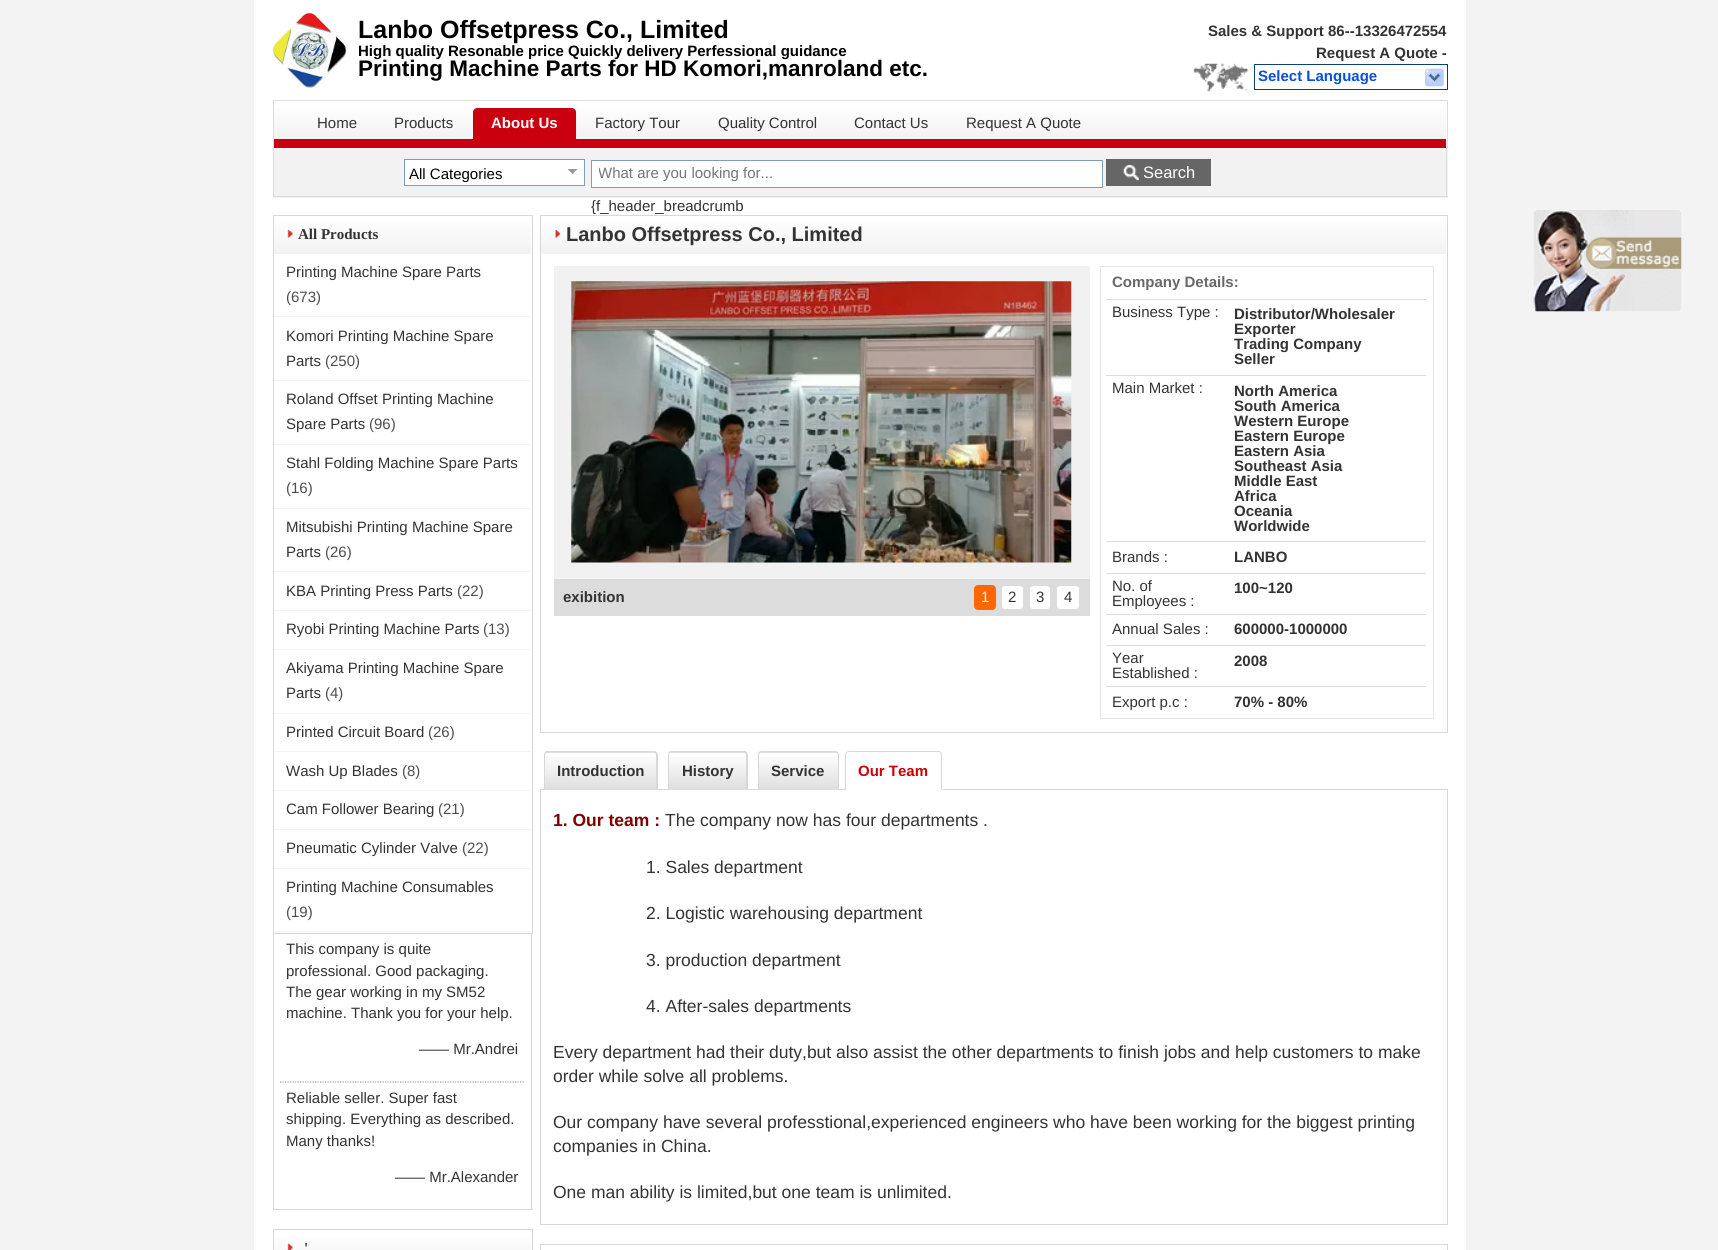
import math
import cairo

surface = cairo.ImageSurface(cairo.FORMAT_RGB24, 1718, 1250)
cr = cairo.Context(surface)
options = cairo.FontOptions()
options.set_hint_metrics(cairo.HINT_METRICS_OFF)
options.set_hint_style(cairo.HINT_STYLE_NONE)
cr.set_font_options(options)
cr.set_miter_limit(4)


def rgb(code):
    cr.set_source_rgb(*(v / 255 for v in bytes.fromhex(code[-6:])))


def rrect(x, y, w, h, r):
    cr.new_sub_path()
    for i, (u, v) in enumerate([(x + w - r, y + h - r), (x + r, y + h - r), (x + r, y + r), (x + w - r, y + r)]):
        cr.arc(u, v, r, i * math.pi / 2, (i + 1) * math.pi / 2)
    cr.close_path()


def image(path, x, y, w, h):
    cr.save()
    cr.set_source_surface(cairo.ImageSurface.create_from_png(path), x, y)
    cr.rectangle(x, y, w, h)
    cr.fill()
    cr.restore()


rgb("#f3f3f3")
cr.paint()
rgb("#ffffff")
cr.rectangle(254, 0, 1212, 1250)
cr.fill()
image("img/1.png", 272, 12, 75, 76)
image("img/2.png", 1193, 63, 55, 29)
cr.rectangle(1254.5, 64.5, 193, 25)
rgb("#0e4074")
cr.set_line_width(1)
cr.stroke()
image("img/3.png", 1425, 68, 19, 19)
rrect(273.5, 100.5, 1174, 48, 0.5)
rgb("#dddddc")
cr.stroke()
gradient = cairo.LinearGradient(860, 101, 860, 139)
gradient.add_color_stop_rgba(0, 1, 1, 1, 1)
gradient.add_color_stop_rgba(1, 0.953, 0.949, 0.949, 1)
cr.set_source(gradient)
cr.rectangle(274, 108, 1172, 31)
cr.fill()
rgb("#cb000f")
cr.rectangle(274, 139, 1172, 9)
cr.fill()
cr.new_path()
cr.move_to(477, 108)
cr.line_to(572, 108)
cr.curve_to(574, 108, 576, 110, 576, 112)
cr.line_to(576, 139)
cr.line_to(473, 139)
cr.line_to(473, 112)
cr.curve_to(473, 110, 475, 108, 477, 108)
cr.close_path()
cr.fill()
rgb("#f3f2f2")
cr.rectangle(274, 149, 1174, 49)
cr.fill()
cr.rectangle(404.5, 159.5, 180, 26)
rgb("#7f9db9")
cr.stroke()
rgb("#ffffff")
cr.rectangle(405, 160, 179, 25)
cr.fill()
rgb("#999999")
cr.new_path()
cr.move_to(567.5, 169)
cr.line_to(577.5, 169)
cr.line_to(572.5, 174)
cr.close_path()
cr.fill()
for x, y, w, h, color in [
    (273, 148, 1175, 1, "#ffffff"),
    (1446, 148, 1, 50, "#dddddc"),
    (273, 196, 1175, 1, "#dddddc"),
    (273, 148, 1, 50, "#dddddc"),
]:
    rgb(color)
    cr.rectangle(x, y, w, h)
    cr.fill()
rgb("#ffffff")
cr.rectangle(591.5, 160.5, 511, 27)
cr.fill_preserve()
rgb("#7f9db9")
cr.stroke()
rgb("#666666")
cr.rectangle(1106, 159, 105, 27)
cr.fill()
image("img/4.png", 1123, 164, 16, 17)
cr.rectangle(273.5, 215.5, 259, 718)
rgb("#d8d8d8")
cr.stroke()
gradient = cairo.LinearGradient(403, 216, 403, 254)
gradient.add_color_stop_rgba(0, 1, 1, 1, 1)
gradient.add_color_stop_rgba(1, 0.953, 0.949, 0.949, 1)
cr.set_source(gradient)
cr.rectangle(274, 223, 257, 31)
cr.fill()
image("img/5.png", 287, 229, 6, 9)
for x, y, w, h, color in [
    (274, 316, 257, 1, "#f0f4f6"),
    (274, 380, 257, 1, "#f0f4f6"),
    (274, 444, 257, 1, "#f0f4f6"),
    (274, 508, 257, 1, "#f0f4f6"),
    (274, 571, 257, 1, "#f0f4f6"),
    (274, 610, 257, 1, "#f0f4f6"),
    (274, 649, 257, 1, "#f0f4f6"),
    (274, 713, 257, 1, "#f0f4f6"),
    (274, 751, 257, 1, "#f0f4f6"),
    (274, 790, 257, 1, "#f0f4f6"),
    (274, 829, 257, 1, "#f0f4f6"),
    (274, 868, 257, 1, "#f0f4f6"),
    (274, 931, 257, 1, "#f0f4f6"),
    (531, 934, 1, 276, "#d8d8d8"),
    (273, 1209, 260, 1, "#d8d8d8"),
    (273, 934, 1, 276, "#d8d8d8"),
]:
    rgb(color)
    cr.rectangle(x, y, w, h)
    cr.fill()
cr.new_path()
cr.move_to(280, 1082)
cr.line_to(525, 1082)
rgb("#a2a2a2")
cr.set_line_width(1.2)
cr.set_dash([1.25, 1.25])
cr.stroke()
cr.rectangle(273.5, 1229.5, 259, 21)
rgb("#d8d8d8")
cr.set_line_width(1)
cr.set_dash([])
cr.stroke()
gradient = cairo.LinearGradient(403, 1230, 403, 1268)
gradient.add_color_stop_rgba(0, 1, 1, 1, 1)
gradient.add_color_stop_rgba(1, 0.953, 0.949, 0.949, 1)
cr.set_source(gradient)
cr.rectangle(274, 1237, 257, 13)
cr.fill()
image("img/6.png", 287, 1243, 6, 7)
cr.rectangle(540.5, 215.5, 907, 517)
rgb("#d8d8d8")
cr.stroke()
gradient = cairo.LinearGradient(994, 216, 994, 254)
gradient.add_color_stop_rgba(0, 1, 1, 1, 1)
gradient.add_color_stop_rgba(1, 0.953, 0.949, 0.949, 1)
cr.set_source(gradient)
cr.rectangle(541, 223, 905, 31)
cr.fill()
image("img/7.png", 555, 229, 6, 9)
rgb("#f1f1f1")
cr.rectangle(554, 266, 536, 313)
cr.fill()
image("img/8.png", 571, 281, 501, 282)
rgb("#dcdcdc")
cr.rectangle(554, 579, 536, 37)
cr.fill()
rgb("#ff6600")
rrect(974.5, 585.5, 21, 24, 3.5)
cr.fill_preserve()
cr.stroke()
rgb("#ffffff")
rrect(1001.5, 585.5, 22, 24, 3.5)
cr.fill_preserve()
rgb("#dddddd")
cr.stroke()
rgb("#ffffff")
rrect(1029.5, 585.5, 21, 24, 3.5)
cr.fill_preserve()
rgb("#dddddd")
cr.stroke()
rgb("#ffffff")
rrect(1056.5, 585.5, 23, 24, 3.5)
cr.fill_preserve()
rgb("#dddddd")
cr.stroke()
cr.rectangle(1100.5, 266.5, 333, 452)
rgb("#e5e5e5")
cr.stroke()
for x, y, w, h, color in [
    (1106, 299, 320, 1, "#dddddd"),
    (1106, 375, 320, 1, "#dddddd"),
    (1106, 541, 320, 1, "#dddddd"),
    (1106, 573, 320, 1, "#dddddd"),
    (1106, 614, 320, 1, "#dddddd"),
    (1106, 645, 320, 1, "#dddddd"),
    (1106, 686, 320, 1, "#dddddd"),
]:
    rgb(color)
    cr.rectangle(x, y, w, h)
    cr.fill()
cr.save()
cr.new_path()
cr.move_to(548, 751)
cr.line_to(654, 751)
cr.curve_to(656, 751, 658, 753, 658, 755)
cr.line_to(658, 790)
cr.line_to(544, 790)
cr.line_to(544, 755)
cr.curve_to(544, 753, 546, 751, 548, 751)
cr.close_path()
cr.clip()
gradient = cairo.LinearGradient(601, 715, 601, 753)
gradient.add_color_stop_rgba(0, 1, 1, 1, 1)
gradient.add_color_stop_rgba(1, 0.871, 0.871, 0.871, 1)
cr.set_source(gradient)
cr.rectangle(544, 751, 114, 2)
cr.fill()
cr.restore()
cr.rectangle(540.5, 789.5, 907, 435)
rgb("#d8d8d8")
cr.stroke()
gradient = cairo.LinearGradient(601, 753, 601, 790)
gradient.add_color_stop_rgba(0, 1, 1, 1, 1)
gradient.add_color_stop_rgba(1, 0.871, 0.871, 0.871, 1)
cr.set_source(gradient)
cr.rectangle(544, 756, 114, 34)
cr.fill()
rgb("#d8d8d8")
cr.set_fill_rule(cairo.FILL_RULE_EVEN_ODD)
cr.new_path()
cr.move_to(548, 751)
cr.line_to(654, 751)
cr.curve_to(656, 751, 658, 753, 658, 755)
cr.line_to(658, 790)
cr.line_to(544, 790)
cr.line_to(544, 755)
cr.curve_to(544, 753, 545, 751, 548, 751)
cr.close_path()
cr.move_to(548, 752)
cr.line_to(654, 752)
cr.curve_to(655, 752, 656, 754, 656, 755)
cr.line_to(656, 790)
cr.line_to(545, 790)
cr.line_to(545, 755)
cr.curve_to(545, 754, 546, 752, 548, 752)
cr.close_path()
cr.fill()
cr.save()
cr.set_fill_rule(cairo.FILL_RULE_WINDING)
cr.new_path()
cr.move_to(672, 751)
cr.line_to(744, 751)
cr.curve_to(746, 751, 748, 753, 748, 755)
cr.line_to(748, 790)
cr.line_to(668, 790)
cr.line_to(668, 755)
cr.curve_to(668, 753, 670, 751, 672, 751)
cr.close_path()
cr.clip()
gradient = cairo.LinearGradient(708, 715, 708, 753)
gradient.add_color_stop_rgba(0, 1, 1, 1, 1)
gradient.add_color_stop_rgba(1, 0.871, 0.871, 0.871, 1)
cr.set_source(gradient)
cr.rectangle(668, 751, 80, 2)
cr.fill()
cr.restore()
gradient = cairo.LinearGradient(708, 753, 708, 790)
gradient.add_color_stop_rgba(0, 1, 1, 1, 1)
gradient.add_color_stop_rgba(1, 0.871, 0.871, 0.871, 1)
cr.set_source(gradient)
cr.rectangle(668, 756, 80, 34)
cr.fill()
rgb("#d8d8d8")
cr.new_path()
cr.move_to(671, 751)
cr.line_to(744, 751)
cr.curve_to(746, 751, 748, 753, 748, 755)
cr.line_to(748, 790)
cr.line_to(668, 790)
cr.line_to(668, 755)
cr.curve_to(668, 753, 669, 751, 671, 751)
cr.close_path()
cr.move_to(671, 752)
cr.line_to(744, 752)
cr.curve_to(745, 752, 746, 754, 746, 755)
cr.line_to(746, 790)
cr.line_to(669, 790)
cr.line_to(669, 755)
cr.curve_to(669, 754, 670, 752, 671, 752)
cr.close_path()
cr.fill()
cr.save()
cr.set_fill_rule(cairo.FILL_RULE_WINDING)
cr.new_path()
cr.move_to(762, 751)
cr.line_to(835, 751)
cr.curve_to(837, 751, 839, 753, 839, 755)
cr.line_to(839, 790)
cr.line_to(758, 790)
cr.line_to(758, 755)
cr.curve_to(758, 753, 760, 751, 762, 751)
cr.close_path()
cr.clip()
gradient = cairo.LinearGradient(798, 715, 798, 753)
gradient.add_color_stop_rgba(0, 1, 1, 1, 1)
gradient.add_color_stop_rgba(1, 0.871, 0.871, 0.871, 1)
cr.set_source(gradient)
cr.rectangle(758, 751, 81, 2)
cr.fill()
cr.restore()
gradient = cairo.LinearGradient(798, 753, 798, 790)
gradient.add_color_stop_rgba(0, 1, 1, 1, 1)
gradient.add_color_stop_rgba(1, 0.871, 0.871, 0.871, 1)
cr.set_source(gradient)
cr.rectangle(758, 756, 81, 34)
cr.fill()
rgb("#d8d8d8")
cr.new_path()
cr.move_to(761, 751)
cr.line_to(835, 751)
cr.curve_to(837, 751, 839, 753, 839, 755)
cr.line_to(839, 790)
cr.line_to(758, 790)
cr.line_to(758, 755)
cr.curve_to(758, 753, 759, 751, 761, 751)
cr.close_path()
cr.move_to(761, 752)
cr.line_to(835, 752)
cr.curve_to(836, 752, 838, 754, 838, 755)
cr.line_to(838, 790)
cr.line_to(759, 790)
cr.line_to(759, 755)
cr.curve_to(759, 754, 760, 752, 761, 752)
cr.close_path()
cr.fill()
rgb("#ffffff")
cr.new_path()
cr.move_to(849, 751)
cr.line_to(939, 751)
cr.curve_to(941, 751, 943, 753, 943, 755)
cr.line_to(943, 790)
cr.line_to(845, 790)
cr.line_to(845, 755)
cr.curve_to(845, 753, 847, 751, 849, 751)
cr.close_path()
cr.fill()
rgb("#d8d8d8")
cr.new_path()
cr.move_to(849, 751)
cr.line_to(939, 751)
cr.curve_to(941, 751, 942, 753, 942, 755)
cr.line_to(942, 790)
cr.line_to(845, 790)
cr.line_to(845, 755)
cr.curve_to(845, 753, 847, 751, 849, 751)
cr.close_path()
cr.move_to(849, 752)
cr.line_to(939, 752)
cr.curve_to(940, 752, 941, 754, 941, 755)
cr.line_to(941, 790)
cr.line_to(846, 790)
cr.line_to(846, 755)
cr.curve_to(846, 754, 847, 752, 849, 752)
cr.close_path()
cr.fill()
cr.rectangle(540.5, 1244.5, 907, 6)
cr.stroke()
image("img/9.png", 1533, 210, 149, 102)
cr.select_font_face("Liberation Sans", cairo.FONT_SLANT_NORMAL, cairo.FONT_WEIGHT_BOLD)
cr.set_font_size(25)
rgb("#000000")
cr.move_to(358, 38)
cr.show_text("Lanbo Offsetpress Co., Limited")
cr.set_font_size(15)
cr.move_to(358, 56)
cr.show_text("High quality Resonable price Quickly delivery Perfessional guidance")
cr.set_font_size(22.5)
cr.move_to(358, 76)
cr.show_text("Printing Machine Parts for HD Komori,manroland etc.")
cr.set_font_size(15)
rgb("#333333")
cr.move_to(1208, 36)
cr.show_text("Sales & Support 86--13326472554")
cr.move_to(1316, 58)
cr.show_text("Request A Quote -")
rgb("#0750d9")
cr.move_to(1258, 81)
cr.show_text("Select Language")
cr.select_font_face("Liberation Sans")
rgb("#333333")
cr.move_to(317, 128)
cr.show_text("Home")
cr.move_to(394, 128)
cr.show_text("Products")
cr.select_font_face("Liberation Sans", cairo.FONT_SLANT_NORMAL, cairo.FONT_WEIGHT_BOLD)
rgb("#ffffff")
cr.move_to(491, 128)
cr.show_text("About Us")
cr.select_font_face("Liberation Sans")
rgb("#333333")
for x, y, s in [
    (595, 128, "Factory Tour"),
    (718, 128, "Quality Control"),
    (854, 128, "Contact Us"),
    (966, 128, "Request A Quote"),
]:
    cr.move_to(x, y)
    cr.show_text(s)
rgb("#000000")
cr.move_to(409, 179)
cr.show_text("All Categories")
cr.save()
cr.set_fill_rule(cairo.FILL_RULE_WINDING)
cr.rectangle(599, 165, 500, 18)
cr.clip()
rgb("#757575")
cr.move_to(598, 178)
cr.show_text("What are you looking for...")
cr.restore()
cr.set_font_size(16.5)
rgb("#ffffff")
cr.move_to(1143, 178)
cr.show_text("Search")
rgb("#666666")
cr.rectangle(1143, 175, 1, 2)
cr.fill()
cr.set_font_size(15)
rgb("#333333")
cr.move_to(591, 211)
cr.show_text("{f_header_breadcrumb")
cr.select_font_face("Liberation Serif", cairo.FONT_SLANT_NORMAL, cairo.FONT_WEIGHT_BOLD)
cr.move_to(298, 239)
cr.show_text("All Products")
cr.select_font_face("Liberation Sans")
cr.move_to(286, 277)
cr.show_text("Printing Machine Spare Parts")
rgb("#4e4e4e")
cr.move_to(286, 302)
cr.show_text("(673)")
rgb("#333333")
cr.move_to(286, 341)
cr.show_text("Komori Printing Machine Spare")
cr.move_to(286, 366)
cr.show_text("Parts")
rgb("#4e4e4e")
cr.move_to(325, 366)
cr.show_text("(250)")
rgb("#333333")
cr.move_to(286, 404)
cr.show_text("Roland Offset Printing Machine")
cr.move_to(286, 429)
cr.show_text("Spare Parts")
rgb("#4e4e4e")
cr.move_to(369, 429)
cr.show_text("(96)")
rgb("#333333")
cr.move_to(286, 468)
cr.show_text("Stahl Folding Machine Spare Parts")
rgb("#4e4e4e")
cr.move_to(286, 493)
cr.show_text("(16)")
rgb("#333333")
cr.move_to(286, 532)
cr.show_text("Mitsubishi Printing Machine Spare")
cr.move_to(286, 557)
cr.show_text("Parts")
rgb("#4e4e4e")
cr.move_to(325, 557)
cr.show_text("(26)")
rgb("#333333")
cr.move_to(286, 596)
cr.show_text("KBA Printing Press Parts")
rgb("#4e4e4e")
cr.move_to(457, 596)
cr.show_text("(22)")
rgb("#333333")
cr.move_to(286, 634)
cr.show_text("Ryobi Printing Machine Parts")
rgb("#4e4e4e")
cr.move_to(483, 634)
cr.show_text("(13)")
rgb("#333333")
cr.move_to(286, 673)
cr.show_text("Akiyama Printing Machine Spare")
cr.move_to(286, 698)
cr.show_text("Parts")
rgb("#4e4e4e")
cr.move_to(325, 698)
cr.show_text("(4)")
rgb("#333333")
cr.move_to(286, 737)
cr.show_text("Printed Circuit Board")
rgb("#4e4e4e")
cr.move_to(428, 737)
cr.show_text("(26)")
rgb("#333333")
cr.move_to(286, 776)
cr.show_text("Wash Up Blades")
rgb("#4e4e4e")
cr.move_to(402, 776)
cr.show_text("(8)")
rgb("#333333")
cr.move_to(286, 814)
cr.show_text("Cam Follower Bearing")
rgb("#4e4e4e")
cr.move_to(438, 814)
cr.show_text("(21)")
rgb("#333333")
cr.move_to(286, 853)
cr.show_text("Pneumatic Cylinder Valve")
rgb("#4e4e4e")
cr.move_to(462, 853)
cr.show_text("(22)")
rgb("#333333")
cr.move_to(286, 892)
cr.show_text("Printing Machine Consumables")
rgb("#4e4e4e")
cr.move_to(286, 917)
cr.show_text("(19)")
rgb("#333333")
for x, y, s in [
    (286, 954, "This company is quite"),
    (286, 976, "professional. Good packaging."),
    (286, 997, "The gear working in my SM52"),
    (286, 1018, "machine. Thank you for your help."),
    (419, 1054, "—— Mr.Andrei"),
    (286, 1103, "Reliable seller. Super fast"),
    (286, 1124, "shipping. Everything as described."),
    (286, 1146, "Many thanks!"),
    (395, 1182, "—— Mr.Alexander"),
]:
    cr.move_to(x, y)
    cr.show_text(s)
cr.select_font_face("Liberation Serif", cairo.FONT_SLANT_NORMAL, cairo.FONT_WEIGHT_BOLD)
cr.move_to(304, 1253)
cr.show_text("'")
cr.select_font_face("Liberation Sans", cairo.FONT_SLANT_NORMAL, cairo.FONT_WEIGHT_BOLD)
cr.set_font_size(20)
cr.move_to(566, 241)
cr.show_text("Lanbo Offsetpress Co., Limited")
cr.set_font_size(15)
cr.move_to(563, 602)
cr.show_text("exibition")
cr.select_font_face("Liberation Sans")
rgb("#ffffff")
cr.move_to(981, 602)
cr.show_text("1")
rgb("#333333")
for x, y, s in [
    (1008, 602, "2"),
    (1036, 602, "3"),
    (1064, 602, "4"),
]:
    cr.move_to(x, y)
    cr.show_text(s)
cr.select_font_face("Liberation Sans", cairo.FONT_SLANT_NORMAL, cairo.FONT_WEIGHT_BOLD)
rgb("#686868")
cr.move_to(1112, 287)
cr.show_text("Company Details:")
cr.select_font_face("Liberation Sans")
rgb("#333333")
cr.move_to(1112, 317)
cr.show_text("Business Type :")
cr.select_font_face("Liberation Sans", cairo.FONT_SLANT_NORMAL, cairo.FONT_WEIGHT_BOLD)
for x, y, s in [
    (1234, 319, "Distributor/Wholesaler"),
    (1234, 334, "Exporter"),
    (1234, 349, "Trading Company"),
    (1234, 364, "Seller"),
]:
    cr.move_to(x, y)
    cr.show_text(s)
cr.select_font_face("Liberation Sans")
cr.move_to(1112, 393)
cr.show_text("Main Market :")
cr.select_font_face("Liberation Sans", cairo.FONT_SLANT_NORMAL, cairo.FONT_WEIGHT_BOLD)
for x, y, s in [
    (1234, 396, "North America"),
    (1234, 411, "South America"),
    (1234, 426, "Western Europe"),
    (1234, 441, "Eastern Europe"),
    (1234, 456, "Eastern Asia"),
    (1234, 471, "Southeast Asia"),
    (1234, 486, "Middle East"),
    (1234, 501, "Africa"),
    (1234, 516, "Oceania"),
    (1234, 531, "Worldwide"),
]:
    cr.move_to(x, y)
    cr.show_text(s)
cr.select_font_face("Liberation Sans")
cr.move_to(1112, 562)
cr.show_text("Brands :")
cr.select_font_face("Liberation Sans", cairo.FONT_SLANT_NORMAL, cairo.FONT_WEIGHT_BOLD)
cr.move_to(1234, 562)
cr.show_text("LANBO")
cr.select_font_face("Liberation Sans")
cr.move_to(1112, 591)
cr.show_text("No. of")
cr.move_to(1112, 606)
cr.show_text("Employees :")
cr.select_font_face("Liberation Sans", cairo.FONT_SLANT_NORMAL, cairo.FONT_WEIGHT_BOLD)
cr.move_to(1234, 593)
cr.show_text("100~120")
cr.select_font_face("Liberation Sans")
cr.move_to(1112, 634)
cr.show_text("Annual Sales :")
cr.select_font_face("Liberation Sans", cairo.FONT_SLANT_NORMAL, cairo.FONT_WEIGHT_BOLD)
cr.move_to(1234, 634)
cr.show_text("600000-1000000")
cr.select_font_face("Liberation Sans")
cr.move_to(1112, 663)
cr.show_text("Year")
cr.move_to(1112, 678)
cr.show_text("Established :")
cr.select_font_face("Liberation Sans", cairo.FONT_SLANT_NORMAL, cairo.FONT_WEIGHT_BOLD)
cr.move_to(1234, 666)
cr.show_text("2008")
cr.select_font_face("Liberation Sans")
cr.move_to(1112, 707)
cr.show_text("Export p.c :")
cr.select_font_face("Liberation Sans", cairo.FONT_SLANT_NORMAL, cairo.FONT_WEIGHT_BOLD)
for x, y, s in [
    (1234, 707, "70% - 80%"),
    (557, 776, "Introduction"),
    (682, 776, "History"),
    (771, 776, "Service"),
]:
    cr.move_to(x, y)
    cr.show_text(s)
rgb("#cc0000")
cr.move_to(858, 776)
cr.show_text("Our Team")
cr.set_font_size(17.5)
rgb("#800000")
cr.move_to(553, 826)
cr.show_text("1. Our team :")
cr.select_font_face("Liberation Sans")
rgb("#333333")
for x, y, s in [
    (665, 826, "The company now has four departments ."),
    (646, 873, "1. Sales department"),
    (646, 919, "2. Logistic warehousing department"),
    (646, 966, "3. production department"),
    (646, 1012, "4. After-sales departments"),
    (553, 1058, "Every department had their duty,but also assist the other departments to finish jobs and help customers to make"),
    (553, 1082, "order while solve all problems."),
    (553, 1128, "Our company have several professtional,experienced engineers who have been working for the biggest printing"),
    (553, 1152, "companies in China."),
    (553, 1198, "One man ability is limited,but one team is unlimited."),
]:
    cr.move_to(x, y)
    cr.show_text(s)
surface.write_to_png("page.png")
